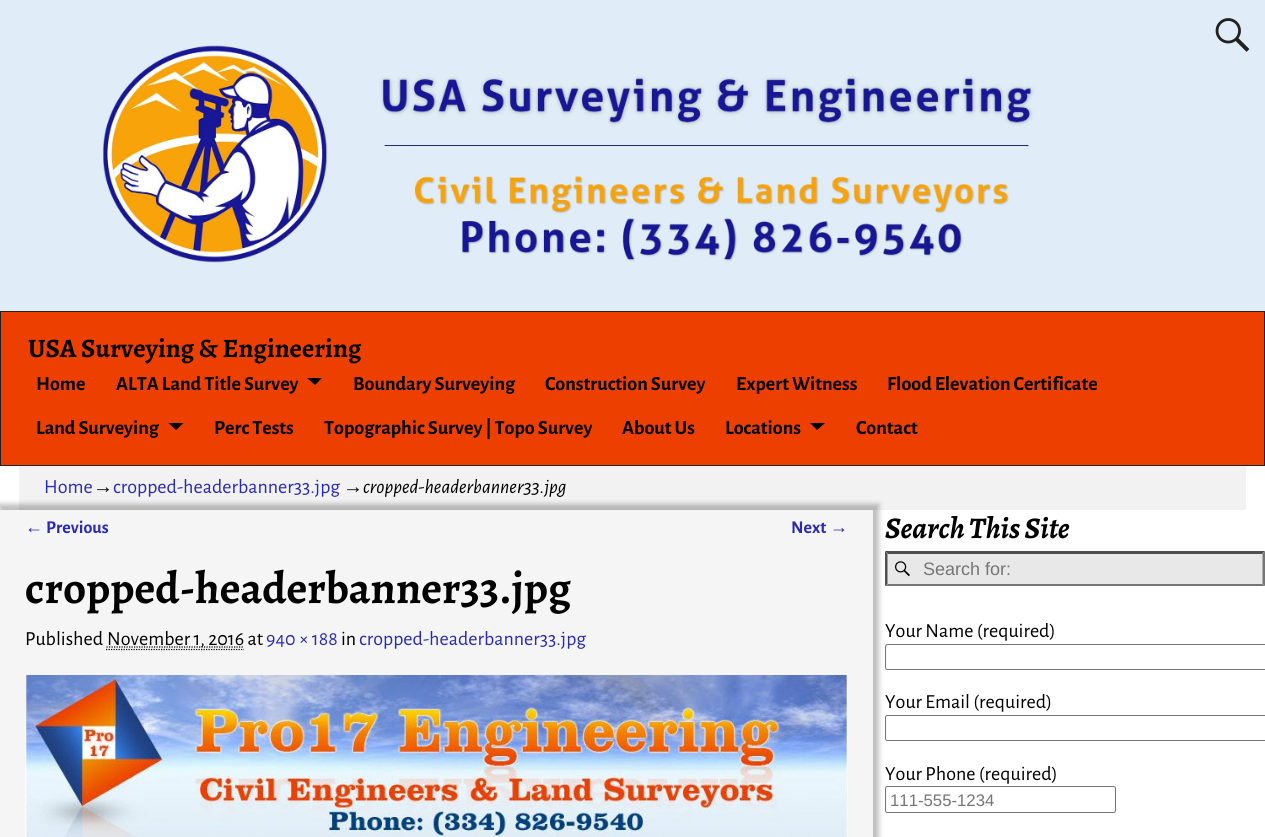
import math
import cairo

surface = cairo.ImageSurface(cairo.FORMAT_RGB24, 1265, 837)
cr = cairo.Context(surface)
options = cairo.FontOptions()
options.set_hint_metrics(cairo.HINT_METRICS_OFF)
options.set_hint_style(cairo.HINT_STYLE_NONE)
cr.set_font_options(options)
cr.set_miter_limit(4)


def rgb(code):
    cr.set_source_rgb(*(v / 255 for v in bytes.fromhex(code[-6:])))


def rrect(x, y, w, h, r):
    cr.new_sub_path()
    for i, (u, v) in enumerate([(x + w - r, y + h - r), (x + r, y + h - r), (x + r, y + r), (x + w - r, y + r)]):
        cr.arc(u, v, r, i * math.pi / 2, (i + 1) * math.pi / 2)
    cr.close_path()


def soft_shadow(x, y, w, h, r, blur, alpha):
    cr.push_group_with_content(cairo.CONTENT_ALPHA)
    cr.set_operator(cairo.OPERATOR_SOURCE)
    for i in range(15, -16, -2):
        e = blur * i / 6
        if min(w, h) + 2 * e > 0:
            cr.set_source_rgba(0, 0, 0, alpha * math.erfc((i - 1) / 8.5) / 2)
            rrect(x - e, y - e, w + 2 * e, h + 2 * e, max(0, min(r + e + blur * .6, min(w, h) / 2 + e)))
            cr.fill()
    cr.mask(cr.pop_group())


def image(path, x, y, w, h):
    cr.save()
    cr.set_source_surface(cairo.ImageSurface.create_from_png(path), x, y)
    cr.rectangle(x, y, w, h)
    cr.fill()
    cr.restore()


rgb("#ffffff")
cr.paint()
image("img/1.png", 0, 0, 1265, 311)
image("img/2.png", 1215, 18, 35, 34)
rgb("#ed3f00")
cr.rectangle(0.5, 311.5, 1264, 154)
cr.fill_preserve()
rgb("#222222")
cr.set_line_width(1)
cr.stroke()
rgb("#000000")
cr.new_path()
cr.move_to(307, 378)
cr.line_to(322, 378)
cr.line_to(315, 385)
cr.close_path()
cr.fill()
cr.new_path()
cr.move_to(168.5, 423)
cr.line_to(183.5, 423)
cr.line_to(176, 430)
cr.close_path()
cr.fill()
cr.new_path()
cr.move_to(810, 423)
cr.line_to(825, 423)
cr.line_to(817, 430)
cr.close_path()
cr.fill()
rgb("#f2f2f2")
cr.rectangle(19, 466, 1227, 44)
cr.fill()
rgb("#000000")
soft_shadow(-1, 504, 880, 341, 0, 2.5, 0.25)
rgb("#f5f5f5")
cr.rectangle(0, 510, 873, 327)
cr.fill()
cr.new_path()
cr.move_to(106, 649.5)
cr.line_to(244, 649.5)
rgb("#000000")
cr.set_line_width(1.2)
cr.set_dash([1.25, 1.25])
cr.stroke()
cr.new_path()
cr.move_to(106.5, 647)
cr.line_to(244, 647)
cr.stroke()
image("img/3.png", 25, 675, 823, 162)
rgb("#e8e8e8")
cr.rectangle(885, 551, 380, 35)
cr.fill()
image("img/4.png", 895, 561, 15, 16)
rgb("#4f4f4f")
cr.new_path()
cr.move_to(885, 551)
cr.line_to(1265, 551)
cr.line_to(1262, 554)
cr.line_to(888, 554)
cr.close_path()
cr.fill()
rgb("#767676")
cr.new_path()
cr.move_to(1265, 551)
cr.line_to(1265, 586)
cr.line_to(1262.5, 584)
cr.line_to(1262.5, 554)
cr.close_path()
cr.fill()
cr.new_path()
cr.move_to(1265, 586)
cr.line_to(885, 586)
cr.line_to(888, 584)
cr.line_to(1262, 584)
cr.close_path()
cr.fill()
rgb("#4f4f4f")
cr.new_path()
cr.move_to(885, 586)
cr.line_to(885, 551)
cr.line_to(887.5, 554)
cr.line_to(887.5, 584)
cr.close_path()
cr.fill()
rrect(885.5, 644.5, 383, 25, 2)
rgb("#767676")
cr.set_line_width(1)
cr.set_dash([])
cr.stroke()
rrect(885.5, 715.5, 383, 25, 2)
cr.stroke()
rrect(885.5, 786.5, 230, 26, 2)
cr.stroke()
cr.select_font_face("Alegreya", cairo.FONT_SLANT_NORMAL, cairo.FONT_WEIGHT_BOLD)
cr.set_font_size(26.6)
rgb("#000000")
cr.move_to(28, 357)
cr.show_text("USA Surveying & Engineering")
cr.select_font_face("Alegreya Sans", cairo.FONT_SLANT_NORMAL, cairo.FONT_WEIGHT_BOLD)
cr.set_font_size(20)
for x, y, s in [
    (36, 390, "Home"),
    (116, 390, "ALTA Land Title Survey"),
    (353, 390, "Boundary Surveying"),
    (545, 390, "Construction Survey"),
    (736, 390, "Expert Witness"),
    (887, 390, "Flood Elevation Certificate"),
    (36, 434, "Land Surveying"),
    (214, 434, "Perc Tests"),
    (324, 434, "Topographic Survey | Topo Survey"),
    (622, 434, "About Us"),
    (725, 434, "Locations"),
    (856, 434, "Contact"),
]:
    cr.move_to(x, y)
    cr.show_text(s)
cr.select_font_face("Alegreya Sans")
rgb("#2a2ab8")
cr.move_to(44, 493)
cr.show_text("Home")
cr.select_font_face("Liberation Sans")
rgb("#000000")
cr.move_to(93, 493)
cr.show_text("→")
cr.select_font_face("Alegreya Sans")
rgb("#2a2ab8")
cr.move_to(113, 493)
cr.show_text("cropped-headerbanner33.jpg")
cr.select_font_face("Liberation Sans")
rgb("#000000")
cr.move_to(343, 493)
cr.show_text("→")
cr.select_font_face("Alegreya Sans", cairo.FONT_SLANT_ITALIC)
cr.move_to(363, 493)
cr.show_text("cropped-headerbanner33.jpg")
cr.select_font_face("Liberation Sans", cairo.FONT_SLANT_NORMAL, cairo.FONT_WEIGHT_BOLD)
cr.set_font_size(18)
rgb("#2a2ab8")
cr.move_to(25, 533)
cr.show_text("←")
cr.select_font_face("Alegreya Sans", cairo.FONT_SLANT_NORMAL, cairo.FONT_WEIGHT_BOLD)
cr.move_to(46, 533)
cr.show_text("Previous")
cr.move_to(791, 533)
cr.show_text("Next")
cr.select_font_face("Liberation Sans", cairo.FONT_SLANT_NORMAL, cairo.FONT_WEIGHT_BOLD)
cr.move_to(830, 533)
cr.show_text("→")
cr.select_font_face("Alegreya", cairo.FONT_SLANT_NORMAL, cairo.FONT_WEIGHT_BOLD)
cr.set_font_size(45)
rgb("#000000")
cr.move_to(25, 603)
cr.show_text("cropped-headerbanner33.jpg")
cr.select_font_face("Alegreya Sans")
cr.set_font_size(20)
cr.move_to(25, 645)
cr.show_text("Published")
cr.move_to(107, 645)
cr.show_text("November 1, 2016 at")
rgb("#2a2ab8")
cr.move_to(266, 645)
cr.show_text("940 × 188")
rgb("#000000")
cr.move_to(341, 645)
cr.show_text("in")
rgb("#2a2ab8")
cr.move_to(359, 645)
cr.show_text("cropped-headerbanner33.jpg")
cr.select_font_face("Alegreya", cairo.FONT_SLANT_ITALIC, cairo.FONT_WEIGHT_BOLD)
cr.set_font_size(30)
rgb("#000000")
cr.move_to(885, 538)
cr.show_text("Search This Site")
cr.select_font_face("Liberation Sans")
cr.set_font_size(18)
rgb("#757575")
cr.move_to(923, 575)
cr.show_text("Search for:")
cr.select_font_face("Alegreya Sans")
cr.set_font_size(20)
rgb("#000000")
for x, y, s in [
    (885, 637, "Your Name (required)"),
    (885, 708, "Your Email (required)"),
    (885, 780, "Your Phone (required)"),
]:
    cr.move_to(x, y)
    cr.show_text(s)
cr.select_font_face("Liberation Sans")
cr.set_font_size(16.75)
rgb("#757575")
cr.move_to(890, 806)
cr.show_text("111-555-1234")
surface.write_to_png("page.png")
